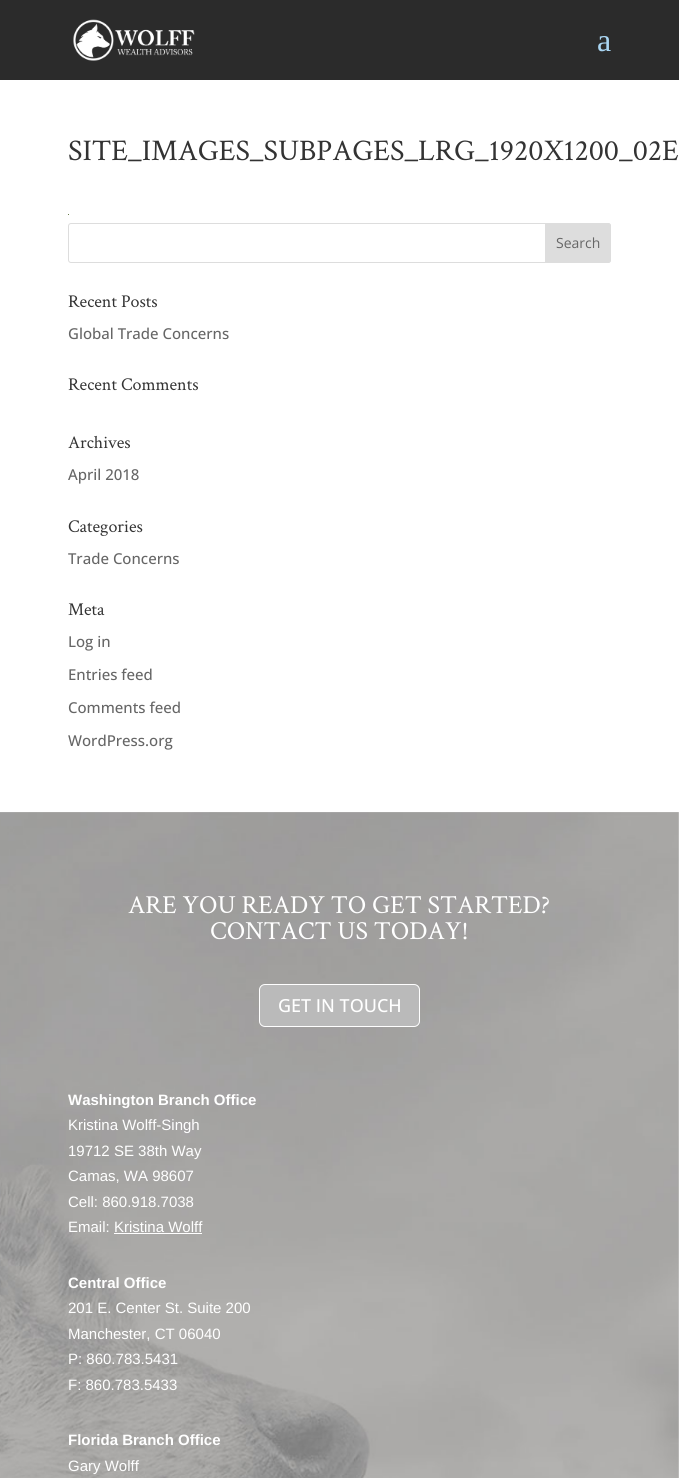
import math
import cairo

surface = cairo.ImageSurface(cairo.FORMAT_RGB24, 679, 1478)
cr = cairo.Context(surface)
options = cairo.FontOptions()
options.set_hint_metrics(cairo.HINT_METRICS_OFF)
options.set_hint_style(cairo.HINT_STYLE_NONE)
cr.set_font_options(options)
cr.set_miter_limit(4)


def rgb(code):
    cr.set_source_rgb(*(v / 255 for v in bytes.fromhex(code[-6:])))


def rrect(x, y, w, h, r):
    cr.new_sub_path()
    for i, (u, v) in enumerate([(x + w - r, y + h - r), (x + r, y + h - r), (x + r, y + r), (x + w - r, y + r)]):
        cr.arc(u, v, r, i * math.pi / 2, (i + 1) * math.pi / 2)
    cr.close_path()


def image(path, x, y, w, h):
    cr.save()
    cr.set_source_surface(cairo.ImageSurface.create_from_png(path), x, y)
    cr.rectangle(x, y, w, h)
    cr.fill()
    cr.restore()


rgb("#ffffff")
cr.paint()
rgb("#2b2b2b")
cr.rectangle(0, 0, 679, 80)
cr.fill()
image("img/1.png", 73, 19, 122, 42)
rgb("#677c4a")
cr.rectangle(68, 214, 1, 1)
cr.fill()
rrect(68.5, 223.5, 542, 39, 2.5)
rgb("#dddddd")
cr.set_line_width(1)
cr.stroke()
cr.new_path()
cr.move_to(545.5, 223.5)
cr.line_to(608, 223.5)
cr.curve_to(609.5, 223.5, 610.5, 224.5, 610.5, 226)
cr.line_to(610.5, 260)
cr.curve_to(610.5, 261.5, 609.5, 262.5, 608, 262.5)
cr.line_to(545.5, 262.5)
cr.close_path()
cr.fill_preserve()
cr.stroke()
image("img/2.png", 0, 812, 679, 666)
rgb("#bababa")
rrect(259.5, 984.5, 160, 42, 5.5)
cr.fill_preserve()
rgb("#ffffff")
cr.stroke()
cr.rectangle(114, 1233, 88, 1)
cr.fill()
cr.select_font_face("Liberation Serif")
cr.set_font_size(32)
rgb("#a9d5f2")
cr.move_to(597, 51)
cr.show_text("a")
cr.select_font_face("Crimson Text")
cr.set_font_size(30)
rgb("#333333")
cr.move_to(68, 160)
cr.show_text("SITE_IMAGES_SUBPAGES_LRG_1920X1200_02E")
cr.select_font_face("Open Sans")
cr.set_font_size(14)
rgb("#666666")
cr.move_to(556, 248)
cr.show_text("Search")
cr.select_font_face("Crimson Text")
cr.set_font_size(18)
rgb("#333333")
cr.move_to(68, 307)
cr.show_text("Recent Posts")
cr.select_font_face("Open Sans Medium")
cr.set_font_size(15)
rgb("#666666")
cr.move_to(68, 339)
cr.show_text("Global Trade Concerns")
cr.select_font_face("Crimson Text")
cr.set_font_size(18)
rgb("#333333")
cr.move_to(68, 390)
cr.show_text("Recent Comments")
cr.move_to(68, 448)
cr.show_text("Archives")
cr.select_font_face("Open Sans Medium")
cr.set_font_size(15)
rgb("#666666")
cr.move_to(68, 480)
cr.show_text("April 2018")
cr.select_font_face("Crimson Text")
cr.set_font_size(18)
rgb("#333333")
cr.move_to(68, 532)
cr.show_text("Categories")
cr.select_font_face("Open Sans Medium")
cr.set_font_size(15)
rgb("#666666")
cr.move_to(68, 564)
cr.show_text("Trade Concerns")
cr.select_font_face("Crimson Text")
cr.set_font_size(18)
rgb("#333333")
cr.move_to(68, 615)
cr.show_text("Meta")
cr.select_font_face("Open Sans Medium")
cr.set_font_size(15)
rgb("#666666")
for x, y, s in [
    (68, 647, "Log in"),
    (68, 680, "Entries feed"),
    (68, 713, "Comments feed"),
    (68, 746, "WordPress.org"),
]:
    cr.move_to(x, y)
    cr.show_text(s)
cr.select_font_face("Crimson Text")
cr.set_font_size(26)
rgb("#ffffff")
cr.move_to(128, 913)
cr.show_text("ARE YOU READY TO GET STARTED?")
cr.move_to(210, 939)
cr.show_text("CONTACT US TODAY!")
cr.select_font_face("Open Sans Medium")
cr.set_font_size(18)
cr.move_to(278, 1012)
cr.show_text("GET IN TOUCH")
cr.select_font_face("Liberation Sans", cairo.FONT_SLANT_NORMAL, cairo.FONT_WEIGHT_BOLD)
cr.set_font_size(15)
cr.move_to(68, 1105)
cr.show_text("Washington Branch Office")
cr.select_font_face("Liberation Sans")
for x, y, s in [
    (68, 1130, "Kristina Wolff-Singh"),
    (68, 1156, "19712 SE 38th Way"),
    (68, 1181, "Camas, WA 98607"),
    (68, 1207, "Cell: 860.918.7038"),
    (68, 1232, "Email:"),
    (114, 1232, "Kristina Wolff"),
]:
    cr.move_to(x, y)
    cr.show_text(s)
cr.select_font_face("Liberation Sans", cairo.FONT_SLANT_NORMAL, cairo.FONT_WEIGHT_BOLD)
cr.move_to(68, 1288)
cr.show_text("Central Office")
cr.select_font_face("Liberation Sans")
for x, y, s in [
    (68, 1313, "201 E. Center St. Suite 200"),
    (68, 1339, "Manchester, CT 06040"),
    (68, 1364, "P: 860.783.5431"),
    (68, 1390, "F: 860.783.5433"),
]:
    cr.move_to(x, y)
    cr.show_text(s)
cr.select_font_face("Liberation Sans", cairo.FONT_SLANT_NORMAL, cairo.FONT_WEIGHT_BOLD)
cr.move_to(68, 1445)
cr.show_text("Florida Branch Office")
cr.select_font_face("Liberation Sans")
cr.move_to(68, 1471)
cr.show_text("Gary Wolff")
surface.write_to_png("page.png")
